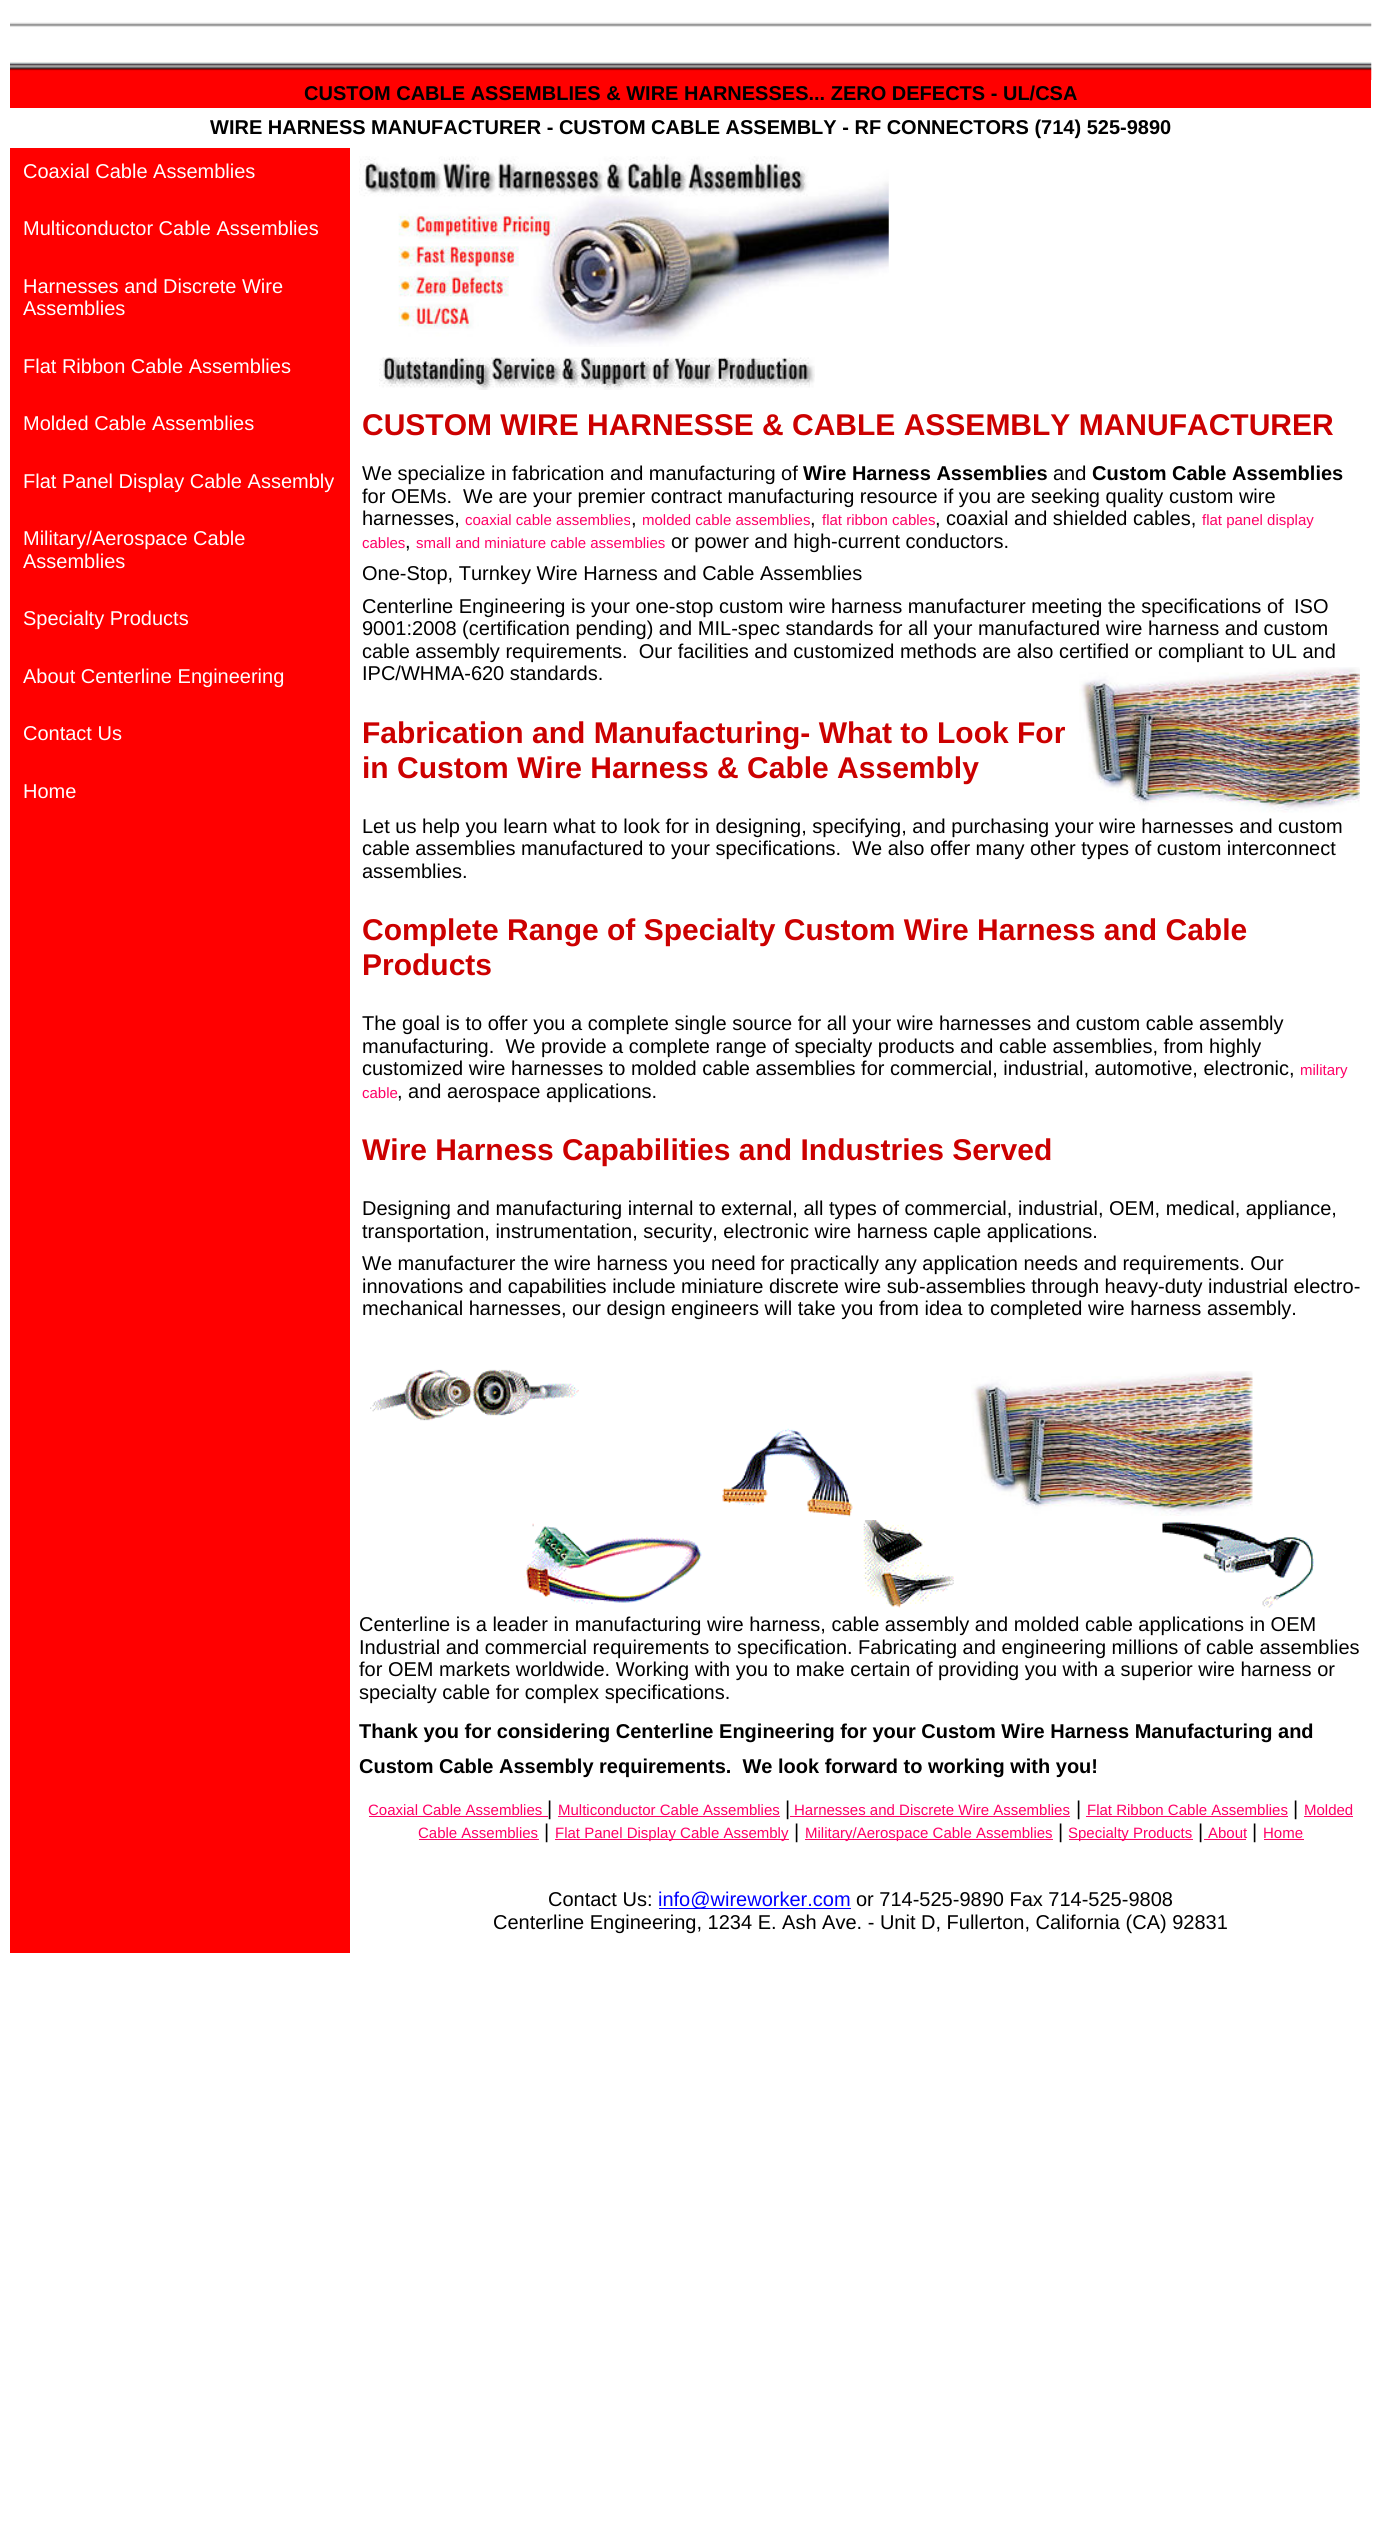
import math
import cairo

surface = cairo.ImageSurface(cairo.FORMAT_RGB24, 1381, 2548)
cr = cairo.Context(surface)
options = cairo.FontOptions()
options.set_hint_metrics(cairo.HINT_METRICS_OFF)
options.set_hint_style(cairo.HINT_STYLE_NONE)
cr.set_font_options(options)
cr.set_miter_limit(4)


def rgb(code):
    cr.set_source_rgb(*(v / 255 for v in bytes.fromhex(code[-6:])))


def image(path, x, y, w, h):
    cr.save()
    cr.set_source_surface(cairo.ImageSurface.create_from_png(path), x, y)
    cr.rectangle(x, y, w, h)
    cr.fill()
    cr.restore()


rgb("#ffffff")
cr.paint()
image("img/1.png", 10, 22, 1362, 58)
rgb("#ff0000")
cr.rectangle(10, 80, 1361, 28)
cr.fill()
cr.rectangle(10, 148, 340, 1805)
cr.fill()
image("img/2.png", 359, 156, 530, 191)
image("img/3.png", 379, 357, 436, 33)
image("img/4.png", 1079, 667, 281, 146)
image("img/5.png", 370, 1369, 209, 52)
image("img/6.png", 971, 1371, 282, 145)
image("img/7.png", 722, 1428, 131, 89)
image("img/8.png", 523, 1523, 179, 81)
image("img/9.png", 863, 1520, 91, 88)
image("img/10.png", 1162, 1522, 152, 86)
for x, y, w, h, color in [
    (369, 1816, 179, 1, "#ff0066"),
    (558, 1816, 222, 1, "#ff0066"),
    (790, 1816, 280, 1, "#ff0066"),
    (1086, 1816, 202, 1, "#ff0066"),
    (1304, 1816, 49, 1, "#ff0066"),
    (419, 1839, 120, 1, "#ff0066"),
    (555, 1839, 234, 1, "#ff0066"),
    (805, 1839, 248, 1, "#ff0066"),
    (1069, 1839, 124, 1, "#ff0066"),
    (1204, 1839, 42, 1, "#ff0066"),
    (1264, 1839, 40, 1, "#ff0066"),
    (659, 1908, 192, 1, "#0000ff"),
]:
    rgb(color)
    cr.rectangle(x, y, w, h)
    cr.fill()
cr.select_font_face("Liberation Sans", cairo.FONT_SLANT_NORMAL, cairo.FONT_WEIGHT_BOLD)
cr.set_font_size(20)
rgb("#000000")
cr.move_to(304, 100)
cr.show_text("CUSTOM CABLE ASSEMBLIES & WIRE HARNESSES... ZERO DEFECTS - UL/CSA")
cr.move_to(210, 134)
cr.show_text("WIRE HARNESS MANUFACTURER - CUSTOM CABLE ASSEMBLY - RF CONNECTORS (714) 525-9890")
cr.select_font_face("Liberation Sans")
rgb("#ffffff")
for x, y, s in [
    (23, 178, "Coaxial Cable Assemblies"),
    (23, 235, "Multiconductor Cable Assemblies"),
    (23, 293, "Harnesses and Discrete Wire"),
    (23, 315, "Assemblies"),
    (23, 373, "Flat Ribbon Cable Assemblies"),
    (23, 430, "Molded Cable Assemblies"),
    (23, 488, "Flat Panel Display Cable Assembly"),
    (23, 545, "Military/Aerospace Cable"),
    (23, 568, "Assemblies"),
    (23, 625, "Specialty Products"),
    (23, 683, "About Centerline Engineering"),
    (23, 740, "Contact Us"),
    (23, 798, "Home"),
]:
    cr.move_to(x, y)
    cr.show_text(s)
cr.select_font_face("Liberation Sans", cairo.FONT_SLANT_NORMAL, cairo.FONT_WEIGHT_BOLD)
cr.set_font_size(30)
rgb("#cc0000")
cr.move_to(362, 435)
cr.show_text("CUSTOM WIRE HARNESSE & CABLE ASSEMBLY MANUFACTURER")
cr.select_font_face("Liberation Sans")
cr.set_font_size(20)
rgb("#000000")
cr.move_to(362, 480)
cr.show_text("We specialize in fabrication and manufacturing of")
cr.select_font_face("Liberation Sans", cairo.FONT_SLANT_NORMAL, cairo.FONT_WEIGHT_BOLD)
cr.move_to(803, 480)
cr.show_text("Wire Harness Assemblies")
cr.select_font_face("Liberation Sans")
cr.move_to(1053, 480)
cr.show_text("and")
cr.select_font_face("Liberation Sans", cairo.FONT_SLANT_NORMAL, cairo.FONT_WEIGHT_BOLD)
cr.move_to(1092, 480)
cr.show_text("Custom Cable Assemblies")
cr.select_font_face("Liberation Sans")
for x, y, s in [
    (362, 503, "for OEMs."),
    (463, 503, "We are your premier contract manufacturing resource if you are seeking quality custom wire"),
    (362, 525, "harnesses,"),
]:
    cr.move_to(x, y)
    cr.show_text(s)
cr.set_font_size(15)
rgb("#ff0066")
cr.move_to(465, 525)
cr.show_text("coaxial cable assemblies")
cr.set_font_size(20)
rgb("#000000")
cr.move_to(631, 525)
cr.show_text(",")
cr.set_font_size(15)
rgb("#ff0066")
cr.move_to(642, 525)
cr.show_text("molded cable assemblies")
cr.set_font_size(20)
rgb("#000000")
cr.move_to(810, 525)
cr.show_text(",")
cr.set_font_size(15)
rgb("#ff0066")
cr.move_to(822, 525)
cr.show_text("flat ribbon cables")
cr.set_font_size(20)
rgb("#000000")
cr.move_to(935, 525)
cr.show_text(", coaxial and shielded cables,")
cr.set_font_size(15)
rgb("#ff0066")
cr.move_to(1202, 525)
cr.show_text("flat panel display")
cr.move_to(362, 548)
cr.show_text("cables")
cr.set_font_size(20)
rgb("#000000")
cr.move_to(405, 548)
cr.show_text(",")
cr.set_font_size(15)
rgb("#ff0066")
cr.move_to(416, 548)
cr.show_text("small and miniature cable assemblies")
cr.set_font_size(20)
rgb("#000000")
for x, y, s in [
    (671, 548, "or power and high-current conductors."),
    (362, 580, "One-Stop, Turnkey Wire Harness and Cable Assemblies"),
    (362, 613, "Centerline Engineering is your one-stop custom wire harness manufacturer meeting the specifications of"),
    (1294, 613, "ISO"),
    (362, 635, "9001:2008 (certification pending) and MIL-spec standards for all your manufactured wire harness and custom"),
    (362, 658, "cable assembly requirements.  Our facilities and customized methods are also certified or compliant to UL and"),
    (362, 680, "IPC/WHMA-620 standards."),
]:
    cr.move_to(x, y)
    cr.show_text(s)
cr.select_font_face("Liberation Sans", cairo.FONT_SLANT_NORMAL, cairo.FONT_WEIGHT_BOLD)
cr.set_font_size(30)
rgb("#cc0000")
cr.move_to(362, 743)
cr.show_text("Fabrication and Manufacturing- What to Look For")
cr.move_to(362, 778)
cr.show_text("in Custom Wire Harness & Cable Assembly")
cr.select_font_face("Liberation Sans")
cr.set_font_size(20)
rgb("#000000")
for x, y, s in [
    (362, 833, "Let us help you learn what to look for in designing, specifying, and purchasing your wire harnesses and custom"),
    (362, 855, "cable assemblies manufactured to your specifications.  We also offer many other types of custom interconnect"),
    (362, 878, "assemblies."),
]:
    cr.move_to(x, y)
    cr.show_text(s)
cr.select_font_face("Liberation Sans", cairo.FONT_SLANT_NORMAL, cairo.FONT_WEIGHT_BOLD)
cr.set_font_size(30)
rgb("#cc0000")
cr.move_to(362, 940)
cr.show_text("Complete Range of Specialty Custom Wire Harness and Cable")
cr.move_to(362, 975)
cr.show_text("Products")
cr.select_font_face("Liberation Sans")
cr.set_font_size(20)
rgb("#000000")
for x, y, s in [
    (362, 1030, "The goal is to offer you a complete single source for all your wire harnesses and custom cable assembly"),
    (362, 1053, "manufacturing.  We provide a complete range of specialty products and cable assemblies, from highly"),
    (362, 1075, "customized wire harnesses to molded cable assemblies for commercial, industrial, automotive, electronic,"),
]:
    cr.move_to(x, y)
    cr.show_text(s)
cr.set_font_size(15)
rgb("#ff0066")
cr.move_to(1300, 1075)
cr.show_text("military")
cr.move_to(362, 1098)
cr.show_text("cable")
cr.set_font_size(20)
rgb("#000000")
cr.move_to(397, 1098)
cr.show_text(", and aerospace applications.")
cr.select_font_face("Liberation Sans", cairo.FONT_SLANT_NORMAL, cairo.FONT_WEIGHT_BOLD)
cr.set_font_size(30)
rgb("#cc0000")
cr.move_to(362, 1160)
cr.show_text("Wire Harness Capabilities and Industries Served")
cr.select_font_face("Liberation Sans")
cr.set_font_size(20)
rgb("#000000")
for x, y, s in [
    (362, 1215, "Designing and manufacturing internal to external, all types of commercial, industrial, OEM, medical, appliance,"),
    (362, 1238, "transportation, instrumentation, security, electronic wire harness caple applications."),
    (362, 1270, "We manufacturer the wire harness you need for practically any application needs and requirements. Our"),
    (362, 1293, "innovations and capabilities include miniature discrete wire sub-assemblies through heavy-duty industrial electro-"),
    (362, 1315, "mechanical harnesses, our design engineers will take you from idea to completed wire harness assembly."),
    (359, 1631, "Centerline is a leader in manufacturing wire harness, cable assembly and molded cable applications in OEM"),
    (359, 1654, "Industrial and commercial requirements to specification. Fabricating and engineering millions of cable assemblies"),
    (359, 1676, "for OEM markets worldwide. Working with you to make certain of providing you with a superior wire harness or"),
    (359, 1699, "specialty cable for complex specifications."),
]:
    cr.move_to(x, y)
    cr.show_text(s)
cr.select_font_face("Liberation Sans", cairo.FONT_SLANT_NORMAL, cairo.FONT_WEIGHT_BOLD)
cr.move_to(359, 1738)
cr.show_text("Thank you for considering Centerline Engineering for your Custom Wire Harness Manufacturing and")
cr.move_to(359, 1773)
cr.show_text("Custom Cable Assembly requirements.  We look forward to working with you!")
cr.select_font_face("Liberation Sans")
cr.set_font_size(15)
rgb("#ff0066")
cr.move_to(368, 1815)
cr.show_text("Coaxial Cable Assemblies")
cr.set_font_size(20)
rgb("#000000")
cr.move_to(547, 1815)
cr.show_text("|")
cr.set_font_size(15)
rgb("#ff0066")
cr.move_to(558, 1815)
cr.show_text("Multiconductor Cable Assemblies")
cr.set_font_size(20)
rgb("#000000")
cr.move_to(785, 1815)
cr.show_text("|")
cr.set_font_size(15)
rgb("#ff0066")
cr.move_to(794, 1815)
cr.show_text("Harnesses and Discrete Wire Assemblies")
cr.set_font_size(20)
rgb("#000000")
cr.move_to(1076, 1815)
cr.show_text("|")
cr.set_font_size(15)
rgb("#ff0066")
cr.move_to(1087, 1815)
cr.show_text("Flat Ribbon Cable Assemblies")
cr.set_font_size(20)
rgb("#000000")
cr.move_to(1293, 1815)
cr.show_text("|")
cr.set_font_size(15)
rgb("#ff0066")
cr.move_to(1304, 1815)
cr.show_text("Molded")
cr.move_to(418, 1838)
cr.show_text("Cable Assemblies")
cr.set_font_size(20)
rgb("#000000")
cr.move_to(544, 1838)
cr.show_text("|")
cr.set_font_size(15)
rgb("#ff0066")
cr.move_to(555, 1838)
cr.show_text("Flat Panel Display Cable Assembly")
cr.set_font_size(20)
rgb("#000000")
cr.move_to(794, 1838)
cr.show_text("|")
cr.set_font_size(15)
rgb("#ff0066")
cr.move_to(805, 1838)
cr.show_text("Military/Aerospace Cable Assemblies")
cr.set_font_size(20)
rgb("#000000")
cr.move_to(1058, 1838)
cr.show_text("|")
cr.set_font_size(15)
rgb("#ff0066")
cr.move_to(1068, 1838)
cr.show_text("Specialty Products")
cr.set_font_size(20)
rgb("#000000")
cr.move_to(1198, 1838)
cr.show_text("|")
cr.set_font_size(15)
rgb("#ff0066")
cr.move_to(1208, 1838)
cr.show_text("About")
cr.set_font_size(20)
rgb("#000000")
cr.move_to(1252, 1838)
cr.show_text("|")
cr.set_font_size(15)
rgb("#ff0066")
cr.move_to(1263, 1838)
cr.show_text("Home")
cr.set_font_size(20)
rgb("#000000")
cr.move_to(548, 1906)
cr.show_text("Contact Us:")
rgb("#0000ff")
cr.move_to(658, 1906)
cr.show_text("info@wireworker.com")
rgb("#000000")
cr.move_to(856, 1906)
cr.show_text("or 714-525-9890 Fax 714-525-9808")
cr.move_to(493, 1929)
cr.show_text("Centerline Engineering, 1234 E. Ash Ave. - Unit D, Fullerton, California (CA) 92831")
surface.write_to_png("page.png")
